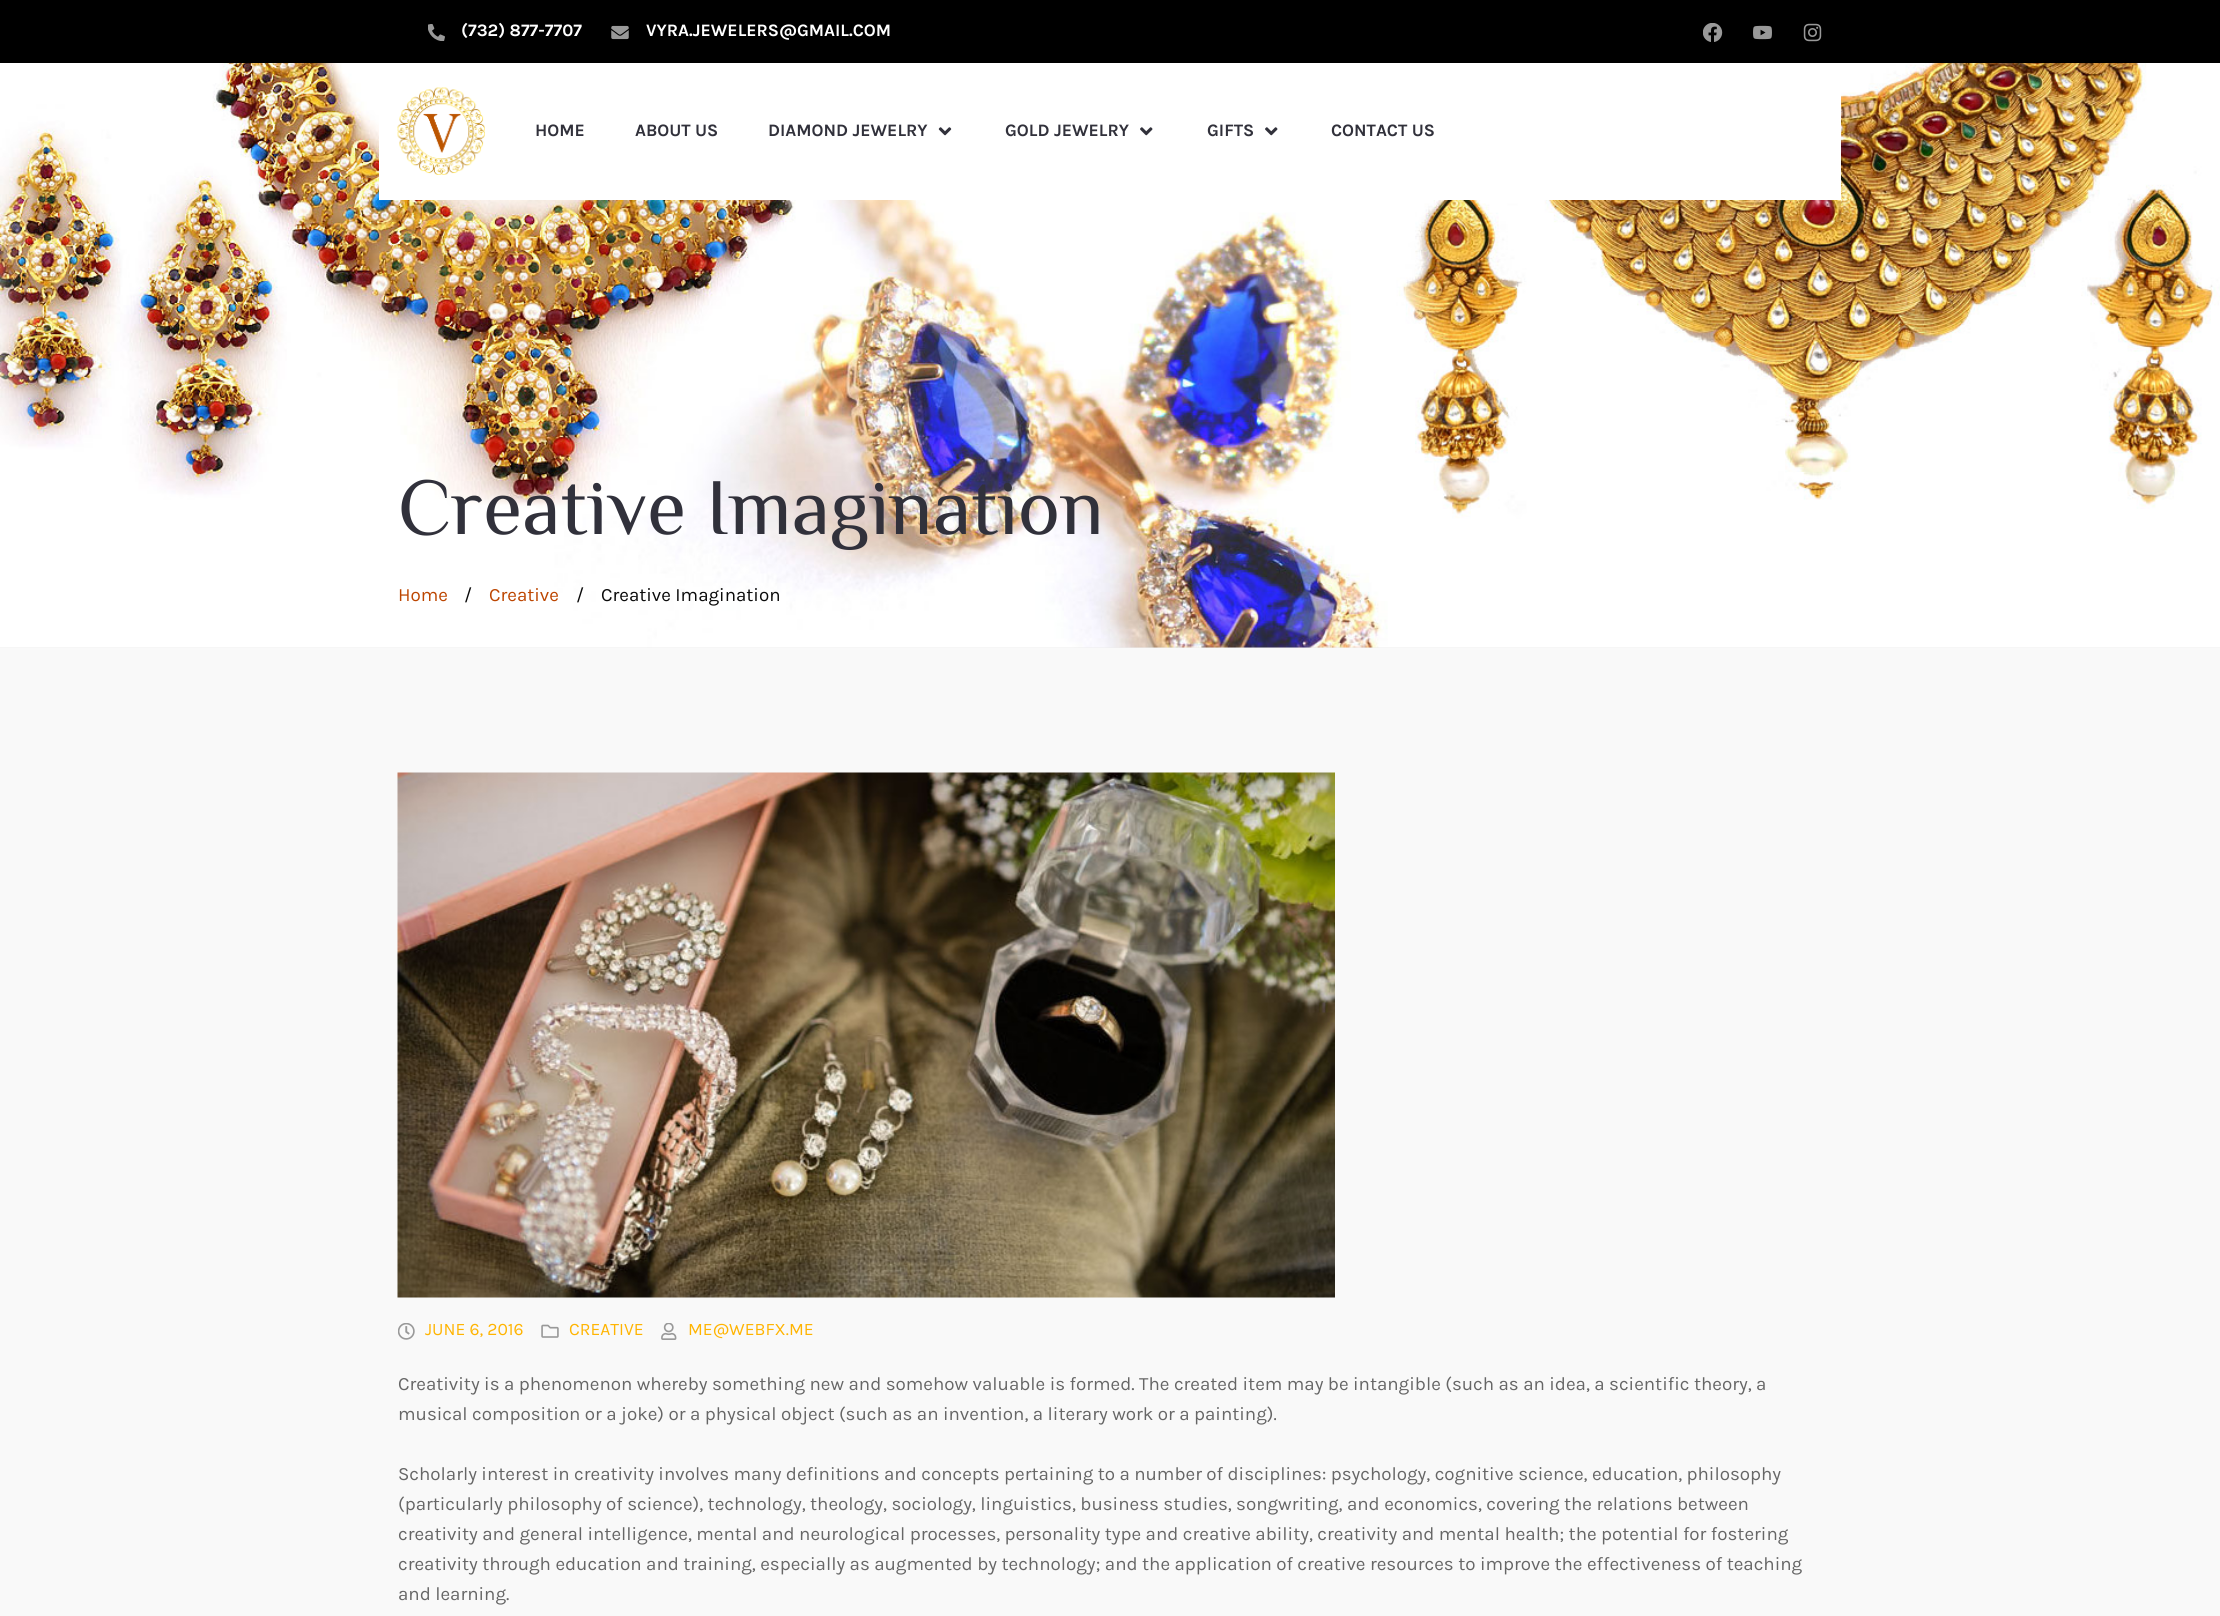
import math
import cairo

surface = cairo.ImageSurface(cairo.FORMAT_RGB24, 2220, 1616)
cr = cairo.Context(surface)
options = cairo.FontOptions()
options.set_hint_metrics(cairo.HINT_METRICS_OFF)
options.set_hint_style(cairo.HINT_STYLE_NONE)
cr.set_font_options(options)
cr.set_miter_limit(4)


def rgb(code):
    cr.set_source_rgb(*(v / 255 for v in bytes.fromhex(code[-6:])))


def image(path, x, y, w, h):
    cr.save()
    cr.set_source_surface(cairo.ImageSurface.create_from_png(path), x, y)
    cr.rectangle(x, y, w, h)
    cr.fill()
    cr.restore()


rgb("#f9f9f9")
cr.paint()
rgb("#000000")
cr.rectangle(0, 0, 2220, 63)
cr.fill()
image("img/1.png", 428, 24, 17, 17)
image("img/2.png", 611, 25, 18, 15)
image("img/3.png", 1703, 23, 20, 19)
image("img/4.png", 1753, 25, 19, 15)
image("img/5.png", 1803, 23, 19, 19)
rgb("#ededed")
cr.rectangle(0, 647, 2220, 1)
cr.fill()
image("img/9.png", 0, 63, 2220, 585)
rgb("#ffffff")
cr.rectangle(379, 63, 1462, 137)
cr.fill()
image("img/6.png", 397, 87, 88, 88)
image("img/7.png", 938, 127, 14, 9)
image("img/8.png", 1140, 127, 13, 9)
image("img/8.png", 1265, 127, 13, 9)
image("img/10.png", 397, 772, 938, 526)
image("img/11.png", 398, 1323, 17, 17)
image("img/12.png", 541, 1324, 18, 14)
image("img/13.png", 661, 1323, 16, 17)
cr.select_font_face("Karla", cairo.FONT_SLANT_NORMAL, cairo.FONT_WEIGHT_BOLD)
cr.set_font_size(17.5)
cr.move_to(461, 36)
cr.show_text("(732) 877-7707")
cr.move_to(646, 36)
cr.show_text("VYRA.JEWELERS@GMAIL.COM")
rgb("#31313b")
for x, y, s in [
    (535, 136, "HOME"),
    (635, 136, "ABOUT US"),
    (768, 136, "DIAMOND JEWELRY"),
    (1005, 136, "GOLD JEWELRY"),
    (1207, 136, "GIFTS"),
    (1331, 136, "CONTACT US"),
]:
    cr.move_to(x, y)
    cr.show_text(s)
cr.select_font_face("El Messiri")
cr.set_font_size(80)
cr.move_to(398, 534)
cr.show_text("Creative Imagination")
cr.select_font_face("Karla")
cr.set_font_size(18.75)
rgb("#bc4500")
cr.move_to(398, 601)
cr.show_text("Home")
rgb("#0a0a0a")
cr.move_to(464, 601)
cr.show_text("/")
rgb("#bc4500")
cr.move_to(489, 601)
cr.show_text("Creative")
rgb("#0a0a0a")
cr.move_to(576, 601)
cr.show_text("/")
cr.move_to(601, 601)
cr.show_text("Creative Imagination")
cr.set_font_size(17.5)
rgb("#ffb401")
for x, y, s in [
    (425, 1335, "JUNE 6, 2016"),
    (569, 1335, "CREATIVE"),
    (688, 1335, "ME@WEBFX.ME"),
]:
    cr.move_to(x, y)
    cr.show_text(s)
cr.set_font_size(18.75)
rgb("#666666")
for x, y, s in [
    (398, 1390, "Creativity is a phenomenon whereby something new and somehow valuable is formed. The created item may be intangible (such as an idea, a scientific theory, a"),
    (398, 1420, "musical composition or a joke) or a physical object (such as an invention, a literary work or a painting)."),
    (398, 1480, "Scholarly interest in creativity involves many definitions and concepts pertaining to a number of disciplines: psychology, cognitive science, education, philosophy"),
    (398, 1510, "(particularly philosophy of science), technology, theology, sociology, linguistics, business studies, songwriting, and economics, covering the relations between"),
    (398, 1540, "creativity and general intelligence, mental and neurological processes, personality type and creative ability, creativity and mental health; the potential for fostering"),
    (398, 1570, "creativity through education and training, especially as augmented by technology; and the application of creative resources to improve the effectiveness of teaching"),
    (398, 1600, "and learning."),
]:
    cr.move_to(x, y)
    cr.show_text(s)
surface.write_to_png("page.png")
